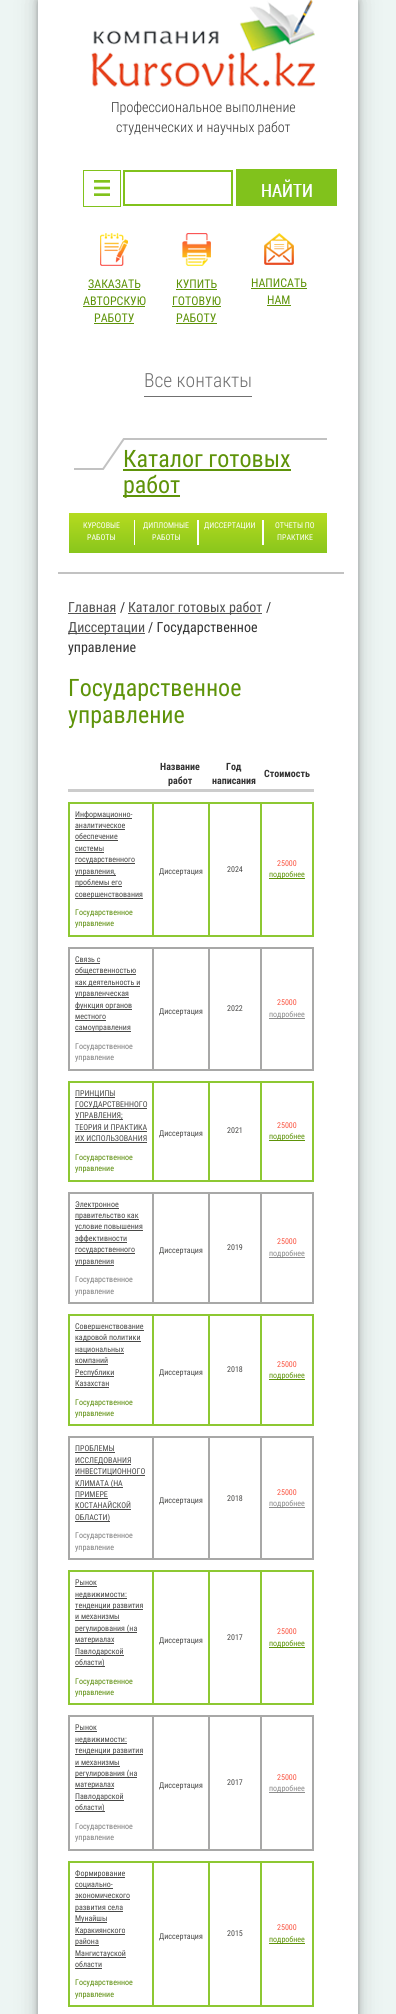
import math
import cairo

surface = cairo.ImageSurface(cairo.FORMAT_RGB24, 396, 2014)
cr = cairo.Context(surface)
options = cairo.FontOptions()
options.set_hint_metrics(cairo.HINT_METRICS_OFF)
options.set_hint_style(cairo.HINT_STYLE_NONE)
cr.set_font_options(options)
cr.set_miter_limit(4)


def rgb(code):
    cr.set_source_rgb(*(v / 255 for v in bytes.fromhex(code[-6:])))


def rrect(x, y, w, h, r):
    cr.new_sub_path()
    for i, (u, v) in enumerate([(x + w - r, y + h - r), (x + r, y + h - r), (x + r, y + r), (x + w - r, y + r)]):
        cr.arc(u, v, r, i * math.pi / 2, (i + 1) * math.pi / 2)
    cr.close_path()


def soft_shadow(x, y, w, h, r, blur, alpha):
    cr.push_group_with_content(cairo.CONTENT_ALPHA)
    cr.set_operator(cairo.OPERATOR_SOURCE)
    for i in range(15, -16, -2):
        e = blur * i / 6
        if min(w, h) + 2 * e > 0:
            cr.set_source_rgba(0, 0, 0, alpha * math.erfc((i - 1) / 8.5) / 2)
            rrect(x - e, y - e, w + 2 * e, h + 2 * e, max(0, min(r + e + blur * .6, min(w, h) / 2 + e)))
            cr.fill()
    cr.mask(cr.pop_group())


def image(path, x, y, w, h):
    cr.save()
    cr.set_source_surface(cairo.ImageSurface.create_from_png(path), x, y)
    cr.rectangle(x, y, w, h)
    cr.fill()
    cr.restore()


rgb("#edf5f3")
cr.paint()
rgb("#323232")
soft_shadow(38, 0, 320, 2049, 0, 11.5, 0.25)
soft_shadow(38, 0, 320, 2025, 0, 3.5, 0.35)
rgb("#ffffff")
cr.rectangle(38, 0, 320, 2014)
cr.fill()
image("img/1.png", 91, 0, 224, 87)
cr.rectangle(83.5, 170.5, 37, 36)
rgb("#81c21c")
cr.set_line_width(1)
cr.stroke()
image("img/2.png", 94, 180, 16, 16)
cr.rectangle(124, 171, 108, 34)
cr.set_line_width(2)
cr.stroke()
image("img/3.png", 238, 171, 97, 33)
cr.rectangle(237, 170, 99, 35)
cr.stroke()
image("img/4.png", 100, 233, 28, 33)
for x, y, w, h, color in [
    (88, 289, 52, 1, "#5e9309"),
    (83, 306, 62, 1, "#5e9309"),
    (94, 323, 40, 1, "#5e9309"),
]:
    rgb(color)
    cr.rectangle(x, y, w, h)
    cr.fill()
image("img/5.png", 182, 233, 29, 33)
for x, y, w, h, color in [
    (176, 289, 41, 1, "#5e9309"),
    (172, 306, 49, 1, "#5e9309"),
    (176, 323, 41, 1, "#5e9309"),
]:
    rgb(color)
    cr.rectangle(x, y, w, h)
    cr.fill()
image("img/6.png", 264, 233, 30, 32)
for x, y, w, h, color in [
    (251, 288, 56, 1, "#5e9309"),
    (267, 305, 24, 1, "#5e9309"),
    (144, 396, 108, 1, "#707070"),
]:
    rgb(color)
    cr.rectangle(x, y, w, h)
    cr.fill()
image("img/7.png", 74, 438, 253, 32)
rgb("#5e9309")
cr.rectangle(123, 469, 168, 2)
cr.fill()
cr.rectangle(123, 495, 57, 2)
cr.fill()
gradient = cairo.LinearGradient(198, 513, 198, 553)
gradient.add_color_stop_rgba(0, 0.71, 0.859, 0.122, 1)
gradient.add_color_stop_rgba(1, 0.537, 0.776, 0.11, 1)
cr.set_source(gradient)
cr.rectangle(69, 513, 258, 40)
cr.fill()
for x, y, w, h, color in [
    (197, 520, 2, 25, "#ffffff"),
    (134, 520, 1, 25, "#ffffff"),
    (262, 520, 2, 25, "#ffffff"),
    (58, 572, 286, 2, "#c2c2c2"),
    (68, 613, 48, 1, "#515151"),
    (128, 613, 134, 1, "#515151"),
    (68, 633, 77, 1, "#515151"),
    (68, 789, 246, 3, "#cccccc"),
    (68, 802, 192, 2, "#8dc832"),
    (68, 935, 192, 2, "#8dc832"),
    (68, 802, 2, 135, "#8dc832"),
    (75, 818, 57, 1, "#494948"),
    (75, 829, 50, 1, "#494948"),
    (75, 840, 43, 1, "#494948"),
    (75, 852, 29, 1, "#494948"),
    (75, 863, 60, 1, "#494948"),
    (75, 875, 41, 1, "#494948"),
    (75, 886, 47, 1, "#494948"),
    (75, 898, 68, 1, "#494948"),
    (152, 802, 2, 135, "#8dc832"),
    (208, 802, 2, 135, "#8dc832"),
]:
    rgb(color)
    cr.rectangle(x, y, w, h)
    cr.fill()
cr.rectangle(261, 803, 52, 133)
cr.stroke()
for x, y, w, h, color in [
    (269, 878, 36, 1, "#5e9309"),
    (68, 947, 192, 2, "#a8a8a7"),
    (68, 1069, 192, 2, "#a8a8a7"),
    (68, 947, 2, 124, "#a8a8a7"),
    (75, 963, 25, 1, "#494948"),
    (75, 974, 61, 1, "#494948"),
    (75, 986, 65, 1, "#494948"),
    (75, 997, 54, 1, "#494948"),
    (75, 1009, 57, 1, "#494948"),
    (75, 1020, 31, 1, "#494948"),
    (75, 1031, 56, 1, "#494948"),
    (152, 947, 2, 124, "#a8a8a7"),
    (208, 947, 2, 124, "#a8a8a7"),
]:
    rgb(color)
    cr.rectangle(x, y, w, h)
    cr.fill()
cr.rectangle(261, 948, 52, 122)
cr.stroke()
for x, y, w, h, color in [
    (269, 1018, 36, 1, "#8c8c8c"),
    (68, 1081, 192, 2, "#8dc832"),
    (68, 1180, 192, 2, "#8dc832"),
    (68, 1081, 2, 101, "#8dc832"),
    (75, 1097, 40, 1, "#494948"),
    (75, 1108, 72, 1, "#494948"),
    (75, 1119, 48, 1, "#494948"),
    (75, 1131, 72, 1, "#494948"),
    (75, 1142, 72, 1, "#494948"),
    (152, 1081, 2, 101, "#8dc832"),
    (208, 1081, 2, 101, "#8dc832"),
]:
    rgb(color)
    cr.rectangle(x, y, w, h)
    cr.fill()
cr.rectangle(261, 1082, 52, 99)
cr.stroke()
for x, y, w, h, color in [
    (269, 1140, 36, 1, "#5e9309"),
    (68, 1192, 192, 2, "#a8a8a7"),
    (68, 1302, 192, 2, "#a8a8a7"),
    (68, 1192, 2, 112, "#a8a8a7"),
    (75, 1208, 44, 1, "#494948"),
    (75, 1219, 64, 1, "#494948"),
    (75, 1230, 68, 1, "#494948"),
    (75, 1242, 52, 1, "#494948"),
    (75, 1253, 60, 1, "#494948"),
    (75, 1265, 39, 1, "#494948"),
    (152, 1192, 2, 112, "#a8a8a7"),
    (208, 1192, 2, 112, "#a8a8a7"),
]:
    rgb(color)
    cr.rectangle(x, y, w, h)
    cr.fill()
cr.rectangle(261, 1193, 52, 110)
cr.stroke()
for x, y, w, h, color in [
    (269, 1257, 36, 1, "#8c8c8c"),
    (68, 1314, 192, 2, "#8dc832"),
    (68, 1424, 192, 2, "#8dc832"),
    (68, 1314, 2, 112, "#8dc832"),
    (75, 1330, 69, 1, "#494948"),
    (75, 1341, 66, 1, "#494948"),
    (75, 1353, 49, 1, "#494948"),
    (75, 1364, 33, 1, "#494948"),
    (75, 1376, 39, 1, "#494948"),
    (75, 1387, 34, 1, "#494948"),
    (152, 1314, 2, 112, "#8dc832"),
    (208, 1314, 2, 112, "#8dc832"),
]:
    rgb(color)
    cr.rectangle(x, y, w, h)
    cr.fill()
cr.rectangle(261, 1315, 52, 110)
cr.stroke()
for x, y, w, h, color in [
    (269, 1379, 36, 1, "#5e9309"),
    (68, 1436, 192, 2, "#a8a8a7"),
    (68, 1558, 192, 2, "#a8a8a7"),
    (68, 1436, 2, 124, "#a8a8a7"),
    (75, 1452, 40, 1, "#494948"),
    (75, 1464, 56, 1, "#494948"),
    (75, 1475, 70, 1, "#494948"),
    (75, 1487, 48, 1, "#494948"),
    (75, 1498, 33, 1, "#494948"),
    (75, 1509, 56, 1, "#494948"),
    (75, 1521, 35, 1, "#494948"),
    (152, 1436, 2, 124, "#a8a8a7"),
    (208, 1436, 2, 124, "#a8a8a7"),
]:
    rgb(color)
    cr.rectangle(x, y, w, h)
    cr.fill()
cr.rectangle(261, 1437, 52, 122)
cr.stroke()
for x, y, w, h, color in [
    (269, 1507, 36, 1, "#8c8c8c"),
    (68, 1570, 192, 2, "#8dc832"),
    (68, 1703, 192, 2, "#8dc832"),
    (68, 1570, 2, 135, "#8dc832"),
    (75, 1586, 22, 1, "#494948"),
    (75, 1598, 52, 1, "#494948"),
    (75, 1609, 68, 1, "#494948"),
    (75, 1620, 45, 1, "#494948"),
    (75, 1632, 62, 1, "#494948"),
    (75, 1643, 39, 1, "#494948"),
    (75, 1655, 49, 1, "#494948"),
    (75, 1666, 30, 1, "#494948"),
    (152, 1570, 2, 135, "#8dc832"),
    (208, 1570, 2, 135, "#8dc832"),
]:
    rgb(color)
    cr.rectangle(x, y, w, h)
    cr.fill()
cr.rectangle(261, 1571, 52, 133)
cr.stroke()
for x, y, w, h, color in [
    (269, 1647, 36, 1, "#5e9309"),
    (68, 1715, 192, 2, "#a8a8a7"),
    (68, 1849, 192, 2, "#a8a8a7"),
    (68, 1715, 2, 136, "#a8a8a7"),
    (75, 1731, 22, 1, "#494948"),
    (75, 1743, 52, 1, "#494948"),
    (75, 1754, 68, 1, "#494948"),
    (75, 1766, 45, 1, "#494948"),
    (75, 1777, 62, 1, "#494948"),
    (75, 1788, 39, 1, "#494948"),
    (75, 1800, 49, 1, "#494948"),
    (75, 1811, 30, 1, "#494948"),
    (152, 1715, 2, 136, "#a8a8a7"),
    (208, 1715, 2, 136, "#a8a8a7"),
]:
    rgb(color)
    cr.rectangle(x, y, w, h)
    cr.fill()
cr.rectangle(261, 1716, 52, 134)
cr.stroke()
for x, y, w, h, color in [
    (269, 1792, 36, 1, "#8c8c8c"),
    (68, 1861, 192, 2, "#8dc832"),
    (68, 2005, 192, 2, "#8dc832"),
    (68, 1861, 2, 146, "#8dc832"),
    (75, 1877, 50, 1, "#494948"),
    (75, 1888, 38, 1, "#494948"),
    (75, 1899, 55, 1, "#494948"),
    (75, 1911, 48, 1, "#494948"),
    (75, 1922, 32, 1, "#494948"),
    (75, 1934, 50, 1, "#494948"),
    (75, 1945, 24, 1, "#494948"),
    (75, 1957, 51, 1, "#494948"),
    (75, 1968, 27, 1, "#494948"),
    (152, 1861, 2, 146, "#8dc832"),
    (208, 1861, 2, 146, "#8dc832"),
]:
    rgb(color)
    cr.rectangle(x, y, w, h)
    cr.fill()
cr.rectangle(261, 1862, 52, 144)
cr.stroke()
rgb("#5e9309")
cr.rectangle(269, 1943, 36, 1)
cr.fill()
cr.select_font_face("Roboto Condensed Light")
cr.set_font_size(14)
rgb("#333333")
cr.move_to(111, 112)
cr.show_text("Профессиональное выполнение")
cr.move_to(116, 132)
cr.show_text("студенческих и научных работ")
cr.select_font_face("Roboto Condensed")
cr.set_font_size(12)
rgb("#5e9309")
for x, y, s in [
    (88, 288, "ЗАКАЗАТЬ"),
    (83, 305, "АВТОРСКУЮ"),
    (94, 322, "РАБОТУ"),
    (176, 288, "КУПИТЬ"),
    (172, 305, "ГОТОВУЮ"),
    (176, 322, "РАБОТУ"),
    (251, 287, "НАПИСАТЬ"),
    (267, 304, "НАМ"),
]:
    cr.move_to(x, y)
    cr.show_text(s)
cr.select_font_face("Roboto Condensed Light")
cr.set_font_size(19.5)
rgb("#707070")
cr.move_to(144, 387)
cr.show_text("Все контакты")
cr.select_font_face("Roboto Condensed")
cr.set_font_size(24)
rgb("#5e9309")
cr.move_to(123, 467)
cr.show_text("Каталог готовых")
cr.move_to(123, 493)
cr.show_text("работ")
cr.set_font_size(8)
rgb("#ffffff")
for x, y, s in [
    (83, 528, "КУРСОВЫЕ"),
    (87, 540, "РАБОТЫ"),
    (143, 528, "ДИПЛОМНЫЕ"),
    (152, 540, "РАБОТЫ"),
    (204, 528, "ДИССЕРТАЦИИ"),
    (275, 528, "ОТЧЕТЫ ПО"),
    (277, 540, "ПРАКТИКЕ"),
]:
    cr.move_to(x, y)
    cr.show_text(s)
cr.set_font_size(14)
rgb("#515151")
cr.move_to(68, 612)
cr.show_text("Главная")
rgb("#333333")
cr.move_to(120, 612)
cr.show_text("/")
rgb("#515151")
cr.move_to(128, 612)
cr.show_text("Каталог готовых работ")
rgb("#333333")
cr.move_to(266, 612)
cr.show_text("/")
rgb("#515151")
cr.move_to(68, 632)
cr.show_text("Диссертации")
rgb("#333333")
cr.move_to(148, 632)
cr.show_text("/ Государственное")
cr.move_to(68, 652)
cr.show_text("управление")
cr.set_font_size(24)
rgb("#5e9309")
cr.move_to(68, 696)
cr.show_text("Государственное")
cr.move_to(68, 723)
cr.show_text("управление")
cr.select_font_face("Roboto Condensed", cairo.FONT_SLANT_NORMAL, cairo.FONT_WEIGHT_BOLD)
cr.set_font_size(10)
rgb("#333333")
for x, y, s in [
    (160, 770, "Название"),
    (168, 784, "работ"),
    (226, 770, "Год"),
    (212, 784, "написания"),
    (264, 777, "Стоимость"),
]:
    cr.move_to(x, y)
    cr.show_text(s)
cr.select_font_face("Roboto Condensed")
cr.set_font_size(8)
rgb("#494948")
for x, y, s in [
    (75, 817, "Информационно-"),
    (75, 828, "аналитическое"),
    (75, 839, "обеспечение"),
    (75, 851, "системы"),
    (75, 862, "государственного"),
    (75, 874, "управления,"),
    (75, 885, "проблемы его"),
    (75, 897, "совершенствования"),
]:
    cr.move_to(x, y)
    cr.show_text(s)
rgb("#588b07")
cr.move_to(75, 915)
cr.show_text("Государственное")
cr.move_to(75, 926)
cr.show_text("управление")
rgb("#494948")
cr.move_to(159, 874)
cr.show_text("Диссертация")
cr.move_to(227, 872)
cr.show_text("2024")
rgb("#fa5542")
cr.move_to(277, 866)
cr.show_text("25000")
rgb("#5e9309")
cr.move_to(269, 877)
cr.show_text("подробнее")
rgb("#494948")
for x, y, s in [
    (75, 962, "Связь с"),
    (75, 973, "общественностью"),
    (75, 985, "как деятельность и"),
    (75, 996, "управленческая"),
    (75, 1008, "функция органов"),
    (75, 1019, "местного"),
    (75, 1030, "самоуправления"),
]:
    cr.move_to(x, y)
    cr.show_text(s)
rgb("#7e7e7e")
cr.move_to(75, 1049)
cr.show_text("Государственное")
cr.move_to(75, 1060)
cr.show_text("управление")
rgb("#494948")
cr.move_to(159, 1014)
cr.show_text("Диссертация")
cr.move_to(227, 1011)
cr.show_text("2022")
rgb("#fa5542")
cr.move_to(277, 1005)
cr.show_text("25000")
rgb("#8c8c8c")
cr.move_to(269, 1017)
cr.show_text("подробнее")
rgb("#494948")
for x, y, s in [
    (75, 1096, "ПРИНЦИПЫ"),
    (75, 1107, "ГОСУДАРСТВЕННОГО"),
    (75, 1118, "УПРАВЛЕНИЯ;"),
    (75, 1130, "ТЕОРИЯ И ПРАКТИКА"),
    (75, 1141, "ИХ ИСПОЛЬЗОВАНИЯ"),
]:
    cr.move_to(x, y)
    cr.show_text(s)
rgb("#588b07")
cr.move_to(75, 1160)
cr.show_text("Государственное")
cr.move_to(75, 1171)
cr.show_text("управление")
rgb("#494948")
cr.move_to(159, 1136)
cr.show_text("Диссертация")
cr.move_to(227, 1133)
cr.show_text("2021")
rgb("#fa5542")
cr.move_to(277, 1128)
cr.show_text("25000")
rgb("#5e9309")
cr.move_to(269, 1139)
cr.show_text("подробнее")
rgb("#494948")
for x, y, s in [
    (75, 1207, "Электронное"),
    (75, 1218, "правительство как"),
    (75, 1229, "условие повышения"),
    (75, 1241, "эффективности"),
    (75, 1252, "государственного"),
    (75, 1264, "управления"),
]:
    cr.move_to(x, y)
    cr.show_text(s)
rgb("#7e7e7e")
cr.move_to(75, 1282)
cr.show_text("Государственное")
cr.move_to(75, 1294)
cr.show_text("управление")
rgb("#494948")
cr.move_to(159, 1253)
cr.show_text("Диссертация")
cr.move_to(227, 1250)
cr.show_text("2019")
rgb("#fa5542")
cr.move_to(277, 1244)
cr.show_text("25000")
rgb("#8c8c8c")
cr.move_to(269, 1256)
cr.show_text("подробнее")
rgb("#494948")
for x, y, s in [
    (75, 1329, "Совершенствование"),
    (75, 1340, "кадровой политики"),
    (75, 1352, "национальных"),
    (75, 1363, "компаний"),
    (75, 1375, "Республики"),
    (75, 1386, "Казахстан"),
]:
    cr.move_to(x, y)
    cr.show_text(s)
rgb("#588b07")
cr.move_to(75, 1405)
cr.show_text("Государственное")
cr.move_to(75, 1416)
cr.show_text("управление")
rgb("#494948")
cr.move_to(159, 1375)
cr.show_text("Диссертация")
cr.move_to(227, 1372)
cr.show_text("2018")
rgb("#fa5542")
cr.move_to(277, 1367)
cr.show_text("25000")
rgb("#5e9309")
cr.move_to(269, 1378)
cr.show_text("подробнее")
rgb("#494948")
for x, y, s in [
    (75, 1451, "ПРОБЛЕМЫ"),
    (75, 1463, "ИССЛЕДОВАНИЯ"),
    (75, 1474, "ИНВЕСТИЦИОННОГО"),
    (75, 1486, "КЛИМАТА (НА"),
    (75, 1497, "ПРИМЕРЕ"),
    (75, 1508, "КОСТАНАЙСКОЙ"),
    (75, 1520, "ОБЛАСТИ)"),
]:
    cr.move_to(x, y)
    cr.show_text(s)
rgb("#7e7e7e")
cr.move_to(75, 1538)
cr.show_text("Государственное")
cr.move_to(75, 1550)
cr.show_text("управление")
rgb("#494948")
cr.move_to(159, 1503)
cr.show_text("Диссертация")
cr.move_to(227, 1501)
cr.show_text("2018")
rgb("#fa5542")
cr.move_to(277, 1495)
cr.show_text("25000")
rgb("#8c8c8c")
cr.move_to(269, 1506)
cr.show_text("подробнее")
rgb("#494948")
for x, y, s in [
    (75, 1585, "Рынок"),
    (75, 1597, "недвижимости:"),
    (75, 1608, "тенденции развития"),
    (75, 1619, "и механизмы"),
    (75, 1631, "регулирования (на"),
    (75, 1642, "материалах"),
    (75, 1654, "Павлодарской"),
    (75, 1665, "области)"),
]:
    cr.move_to(x, y)
    cr.show_text(s)
rgb("#588b07")
cr.move_to(75, 1684)
cr.show_text("Государственное")
cr.move_to(75, 1695)
cr.show_text("управление")
rgb("#494948")
cr.move_to(159, 1643)
cr.show_text("Диссертация")
cr.move_to(227, 1640)
cr.show_text("2017")
rgb("#fa5542")
cr.move_to(277, 1634)
cr.show_text("25000")
rgb("#5e9309")
cr.move_to(269, 1646)
cr.show_text("подробнее")
rgb("#494948")
for x, y, s in [
    (75, 1730, "Рынок"),
    (75, 1742, "недвижимости:"),
    (75, 1753, "тенденции развития"),
    (75, 1765, "и механизмы"),
    (75, 1776, "регулирования (на"),
    (75, 1787, "материалах"),
    (75, 1799, "Павлодарской"),
    (75, 1810, "области)"),
]:
    cr.move_to(x, y)
    cr.show_text(s)
rgb("#7e7e7e")
cr.move_to(75, 1829)
cr.show_text("Государственное")
cr.move_to(75, 1840)
cr.show_text("управление")
rgb("#494948")
cr.move_to(159, 1788)
cr.show_text("Диссертация")
cr.move_to(227, 1785)
cr.show_text("2017")
rgb("#fa5542")
cr.move_to(277, 1780)
cr.show_text("25000")
rgb("#8c8c8c")
cr.move_to(269, 1791)
cr.show_text("подробнее")
rgb("#494948")
for x, y, s in [
    (75, 1876, "Формирование"),
    (75, 1887, "социально-"),
    (75, 1898, "экономического"),
    (75, 1910, "развития села"),
    (75, 1921, "Мунайшы"),
    (75, 1933, "Каракиянского"),
    (75, 1944, "района"),
    (75, 1956, "Мангистауской"),
    (75, 1967, "области"),
]:
    cr.move_to(x, y)
    cr.show_text(s)
rgb("#588b07")
cr.move_to(75, 1985)
cr.show_text("Государственное")
cr.move_to(75, 1997)
cr.show_text("управление")
rgb("#494948")
cr.move_to(159, 1939)
cr.show_text("Диссертация")
cr.move_to(227, 1936)
cr.show_text("2015")
rgb("#fa5542")
cr.move_to(277, 1930)
cr.show_text("25000")
rgb("#5e9309")
cr.move_to(269, 1942)
cr.show_text("подробнее")
surface.write_to_png("page.png")
